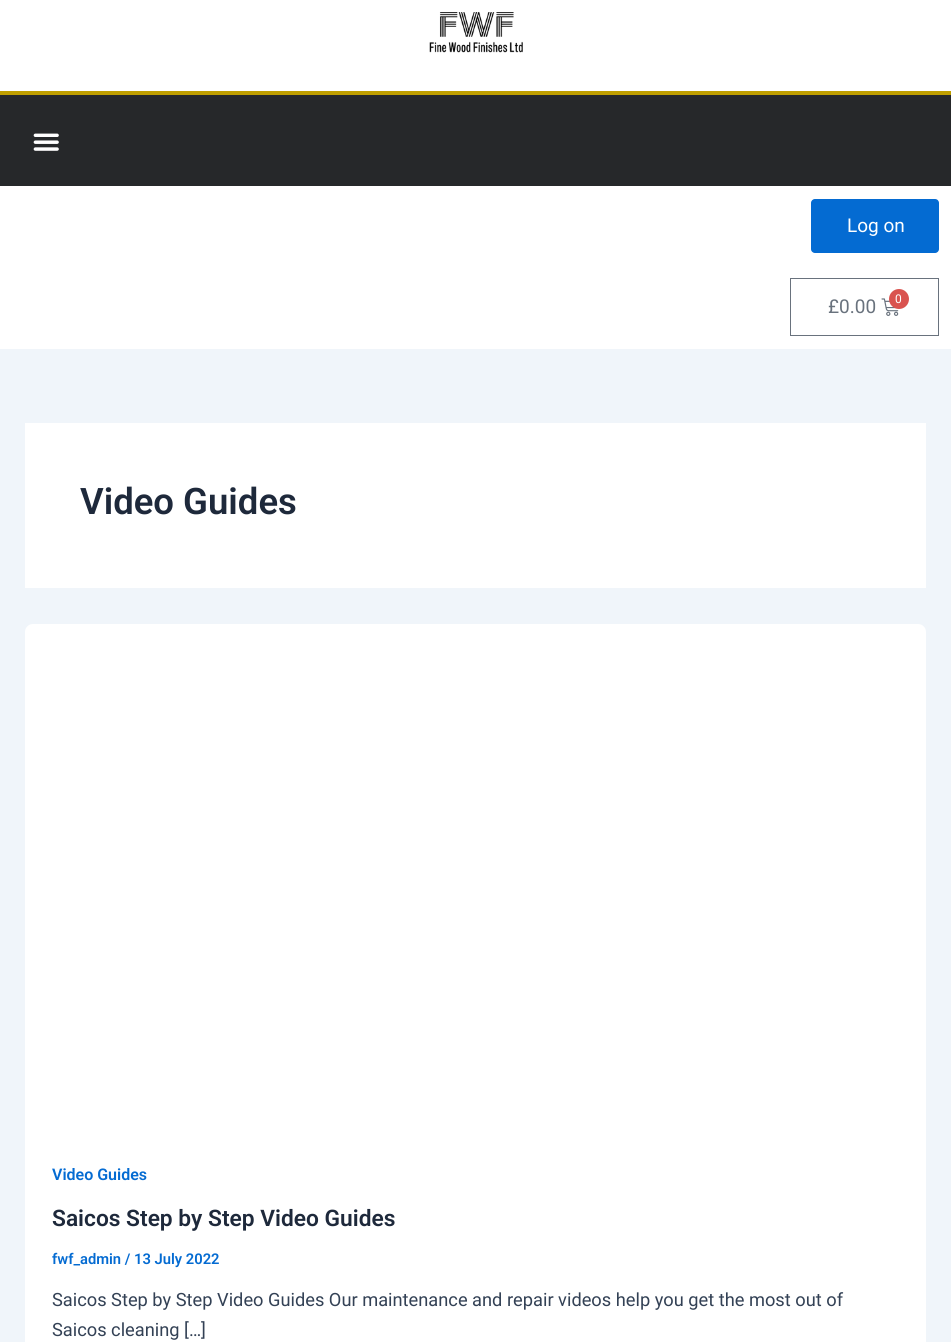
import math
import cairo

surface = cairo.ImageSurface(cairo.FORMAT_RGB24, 951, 1342)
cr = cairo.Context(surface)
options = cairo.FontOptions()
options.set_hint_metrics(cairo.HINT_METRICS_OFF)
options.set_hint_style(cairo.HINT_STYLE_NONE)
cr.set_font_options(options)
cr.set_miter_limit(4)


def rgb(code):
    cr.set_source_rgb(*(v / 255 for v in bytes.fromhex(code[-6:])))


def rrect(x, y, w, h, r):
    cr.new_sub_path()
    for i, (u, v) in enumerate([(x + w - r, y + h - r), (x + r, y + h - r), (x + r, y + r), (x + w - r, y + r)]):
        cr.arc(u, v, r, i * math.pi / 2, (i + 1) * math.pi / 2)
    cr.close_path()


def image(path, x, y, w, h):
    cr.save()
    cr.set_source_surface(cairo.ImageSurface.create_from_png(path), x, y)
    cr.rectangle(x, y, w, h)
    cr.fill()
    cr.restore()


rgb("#f0f5fa")
cr.paint()
rgb("#ffffff")
cr.rectangle(0, 0, 951, 91)
cr.fill()
image("img/1.png", 429, 12, 94, 41)
rgb("#26282a")
cr.rectangle(0, 95, 951, 91)
cr.fill()
rgb("#bf9f00")
cr.rectangle(0, 91, 951, 4)
cr.fill()
image("img/2.png", 33, 133, 26, 18)
rgb("#ffffff")
cr.rectangle(0, 186, 951, 163)
cr.fill()
rgb("#046bd2")
rrect(811, 199, 128, 54, 4)
cr.fill()
cr.rectangle(790.5, 278.5, 148, 57)
rgb("#69727d")
cr.set_line_width(1)
cr.stroke()
image("img/3.png", 881, 298, 18, 18)
rgb("#d9534f")
cr.arc(899, 299, 10, 0, 2 * math.pi)
cr.fill()
rgb("#ffffff")
cr.rectangle(25, 423, 901, 165)
cr.fill()
rrect(25, 624, 901, 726, 8)
cr.fill()
cr.select_font_face("Roboto")
cr.set_font_size(19)
cr.move_to(847, 232)
cr.show_text("Log on")
rgb("#69727d")
cr.move_to(828, 313)
cr.show_text("£0.00")
cr.set_font_size(12)
rgb("#ffffff")
cr.move_to(895, 303)
cr.show_text("0")
cr.select_font_face("Roboto SemiBold")
cr.set_font_size(36.5)
rgb("#1e293b")
cr.move_to(80, 514)
cr.show_text("Video Guides")
cr.set_font_size(16)
rgb("#046bd2")
cr.move_to(52, 1180)
cr.show_text("Video Guides")
cr.set_font_size(22.75)
rgb("#1e293b")
cr.move_to(52, 1226)
cr.show_text("Saicos Step by Step Video Guides")
cr.set_font_size(14.75)
rgb("#046bd2")
cr.move_to(52, 1264)
cr.show_text("fwf_admin / 13 July 2022")
cr.select_font_face("Roboto")
cr.set_font_size(18.25)
rgb("#334155")
cr.move_to(52, 1306)
cr.show_text("Saicos Step by Step Video Guides Our maintenance and repair videos help you get the most out of")
cr.move_to(52, 1336)
cr.show_text("Saicos cleaning […]")
surface.write_to_png("page.png")
